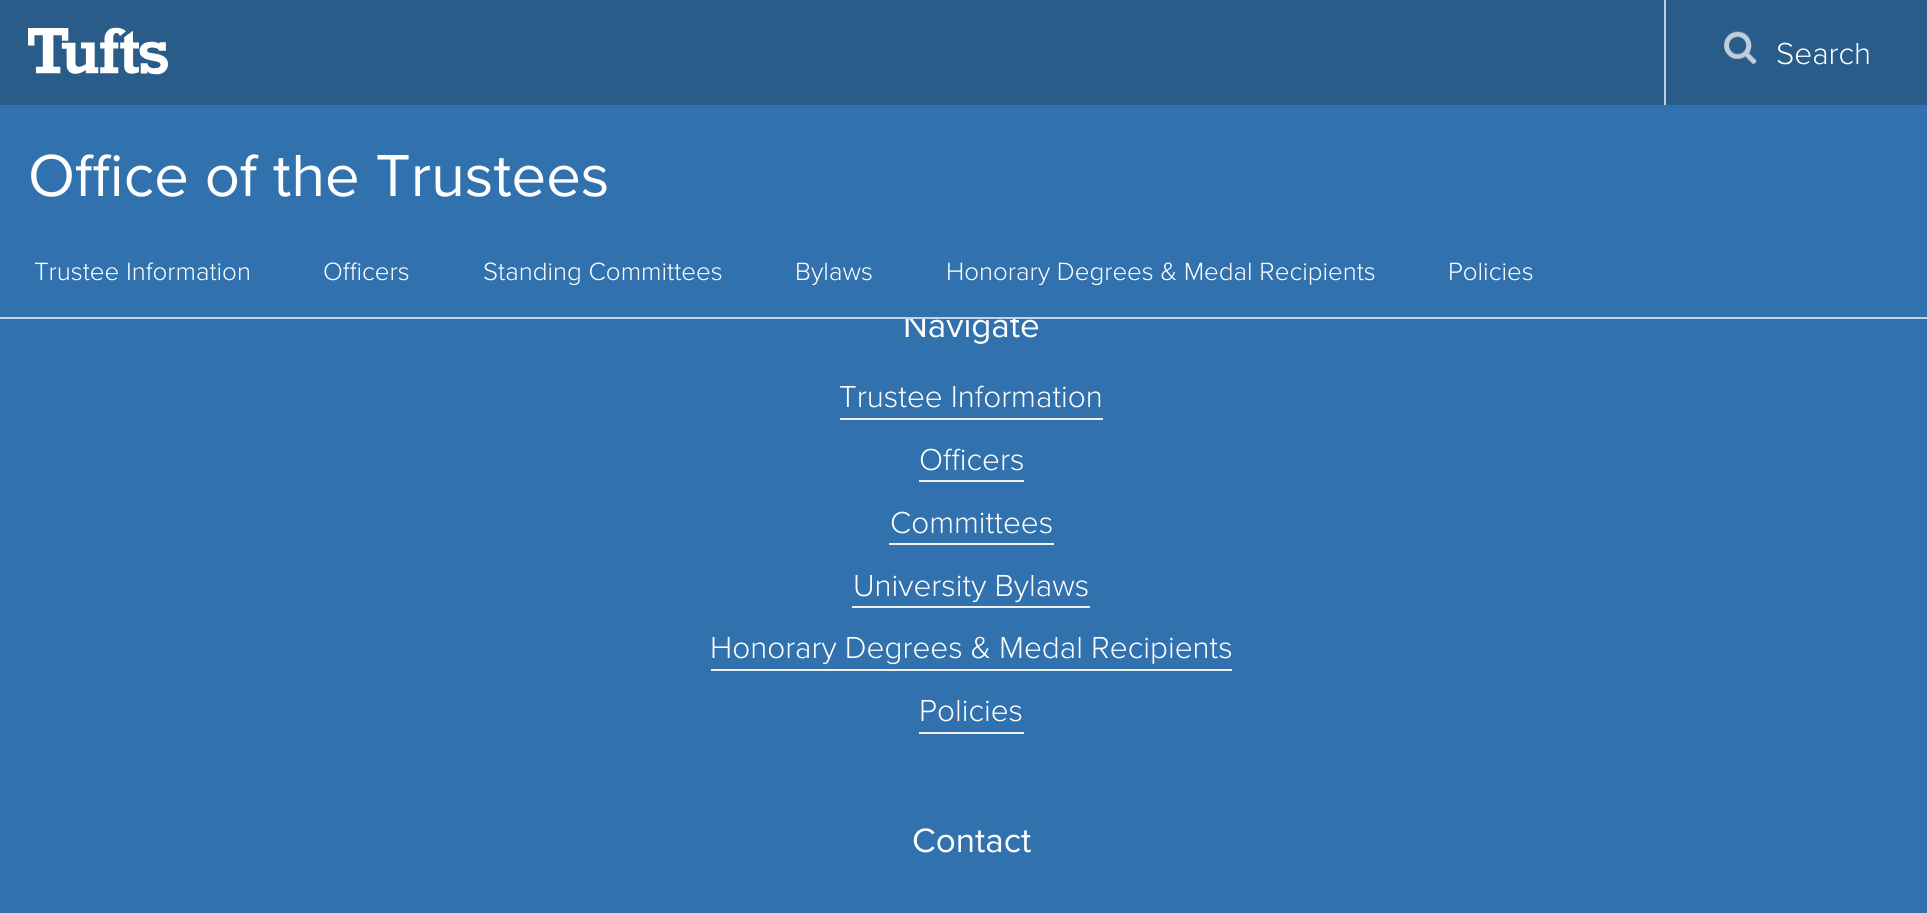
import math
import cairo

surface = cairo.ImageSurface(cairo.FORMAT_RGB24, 1927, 913)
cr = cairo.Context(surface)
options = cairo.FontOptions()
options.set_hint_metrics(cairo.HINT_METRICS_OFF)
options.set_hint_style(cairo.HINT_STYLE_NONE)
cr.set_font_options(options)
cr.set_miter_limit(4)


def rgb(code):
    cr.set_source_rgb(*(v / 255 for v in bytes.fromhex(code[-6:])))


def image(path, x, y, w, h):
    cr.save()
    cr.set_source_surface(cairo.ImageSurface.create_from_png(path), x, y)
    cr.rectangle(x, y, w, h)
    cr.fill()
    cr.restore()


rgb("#3172ae")
cr.paint()
rgb("#2a5c89")
cr.rectangle(0, 0, 1927, 105)
cr.fill()
image("img/1.png", 28, 27, 140, 48)
rgb("#bfcedc")
cr.rectangle(1664, 0, 2, 105)
cr.fill()
image("img/2.png", 1724, 31, 33, 33)
for x, y, w, h, color in [
    (840, 418, 263, 2, "#f1f1f1"),
    (919, 480, 105, 2, "#f1f1f1"),
    (889, 543, 165, 2, "#f1f1f1"),
    (852, 606, 238, 2, "#f1f1f1"),
    (711, 669, 521, 2, "#f1f1f1"),
    (919, 732, 105, 2, "#f1f1f1"),
]:
    rgb(color)
    cr.rectangle(x, y, w, h)
    cr.fill()
cr.select_font_face("Proxima Nova Light")
cr.set_font_size(31.5)
rgb("#ffffff")
cr.move_to(1776, 64)
cr.show_text("Search")
cr.set_font_size(25.9)
for x, y, s in [
    (34, 280, "Trustee Information"),
    (323, 280, "Officers"),
    (483, 280, "Standing Committees"),
    (795, 280, "Bylaws"),
    (946, 280, "Honorary Degrees & Medal Recipients"),
    (1448, 280, "Policies"),
]:
    cr.move_to(x, y)
    cr.show_text(s)
cr.select_font_face("Proxima Nova")
cr.set_font_size(61.5)
cr.move_to(28, 196)
cr.show_text("Office of the Trustees")
cr.set_font_size(35)
cr.move_to(903, 337)
cr.show_text("Navigate")
rgb("#c1d5e7")
cr.rectangle(0, 317, 1927, 2)
cr.fill()
rgb("#3172ae")
cr.rectangle(905, 313, 111, 4)
cr.fill()
cr.select_font_face("Proxima Nova Light")
cr.set_font_size(31.5)
rgb("#ffffff")
for x, y, s in [
    (839, 407, "Trustee Information"),
    (919, 470, "Officers"),
    (890, 533, "Committees"),
    (853, 596, "University Bylaws"),
    (710, 658, "Honorary Degrees & Medal Recipients"),
    (919, 721, "Policies"),
]:
    cr.move_to(x, y)
    cr.show_text(s)
cr.select_font_face("Proxima Nova")
cr.set_font_size(35)
cr.move_to(912, 852)
cr.show_text("Contact")
surface.write_to_png("page.png")
